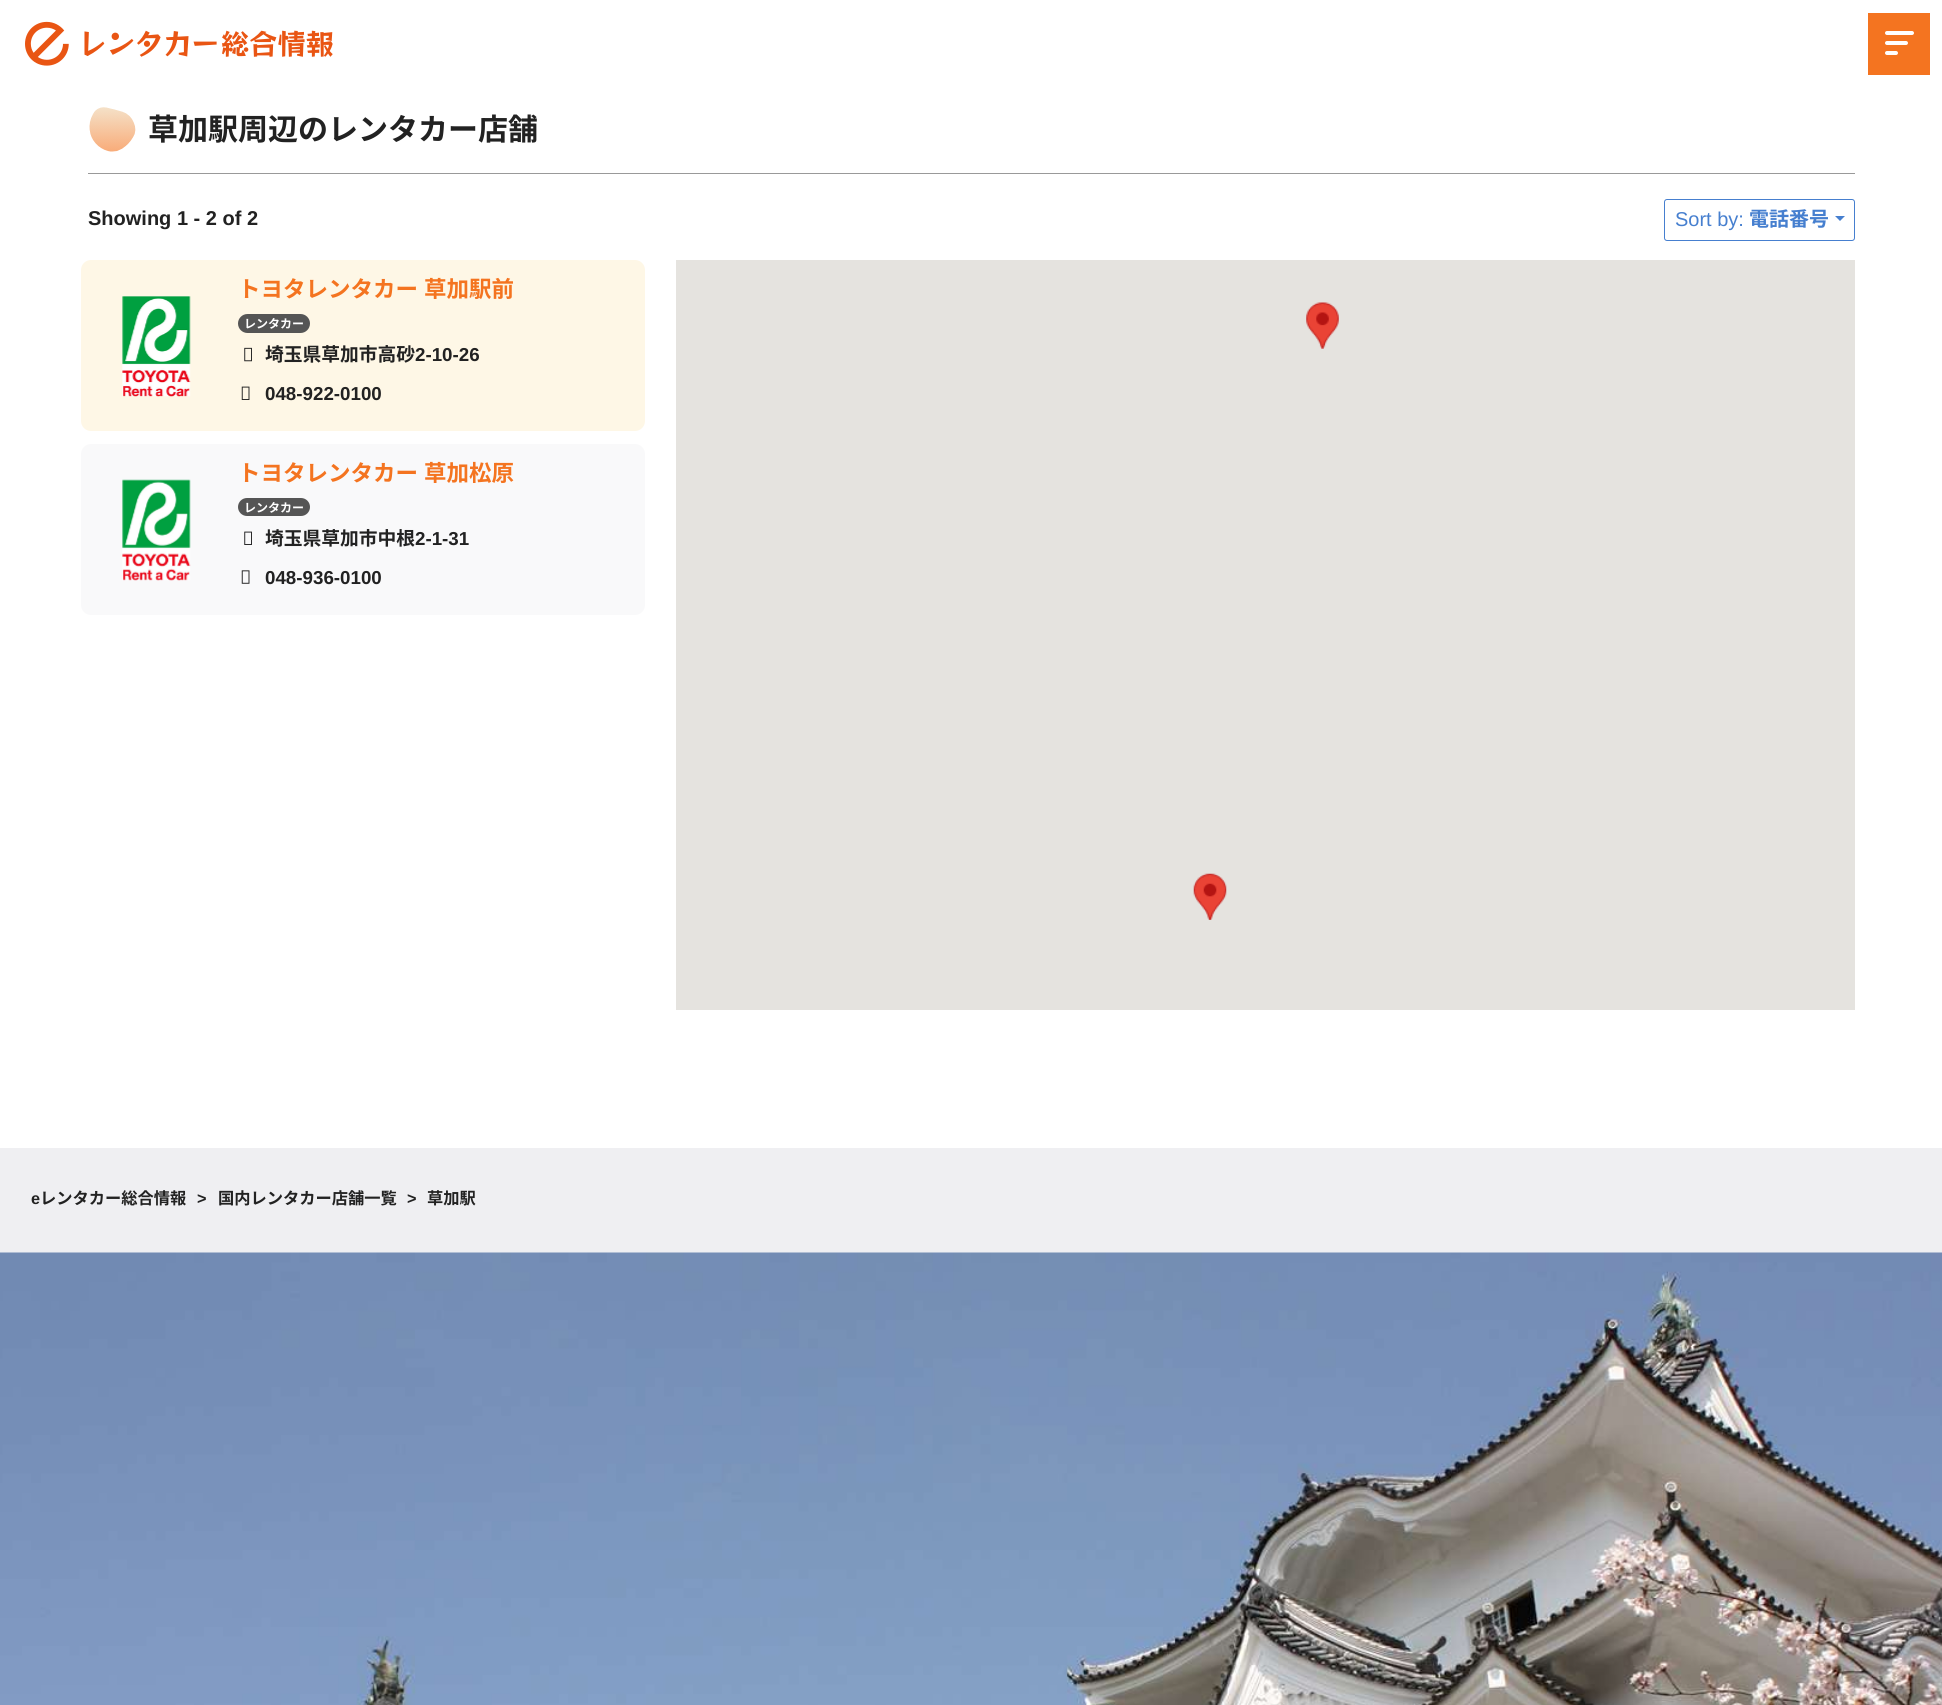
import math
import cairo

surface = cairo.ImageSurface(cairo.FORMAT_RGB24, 1942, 1705)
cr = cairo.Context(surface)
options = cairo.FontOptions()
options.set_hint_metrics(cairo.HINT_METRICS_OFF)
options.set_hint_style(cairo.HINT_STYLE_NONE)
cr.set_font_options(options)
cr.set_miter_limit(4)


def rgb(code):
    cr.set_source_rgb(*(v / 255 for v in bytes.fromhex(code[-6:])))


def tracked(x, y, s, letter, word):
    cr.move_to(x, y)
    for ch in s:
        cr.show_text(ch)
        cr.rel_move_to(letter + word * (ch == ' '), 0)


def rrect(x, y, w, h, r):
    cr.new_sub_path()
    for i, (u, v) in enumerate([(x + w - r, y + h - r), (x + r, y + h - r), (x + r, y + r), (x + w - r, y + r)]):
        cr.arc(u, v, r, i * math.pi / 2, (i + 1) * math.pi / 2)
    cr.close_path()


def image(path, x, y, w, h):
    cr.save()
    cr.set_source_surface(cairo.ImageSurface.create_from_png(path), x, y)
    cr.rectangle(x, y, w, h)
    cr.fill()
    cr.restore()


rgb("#ffffff")
cr.paint()
image("img/1.png", 25, 21, 308, 45)
rgb("#f47420")
cr.rectangle(1868, 13, 62, 62)
cr.fill()
rgb("#ffffff")
rrect(1885, 31, 29, 4, 2)
cr.fill()
rrect(1885, 41, 23, 4, 2)
cr.fill()
rrect(1885, 51, 13, 4, 2)
cr.fill()
rgb("#999999")
cr.rectangle(88, 173, 1767, 1)
cr.fill()
image("img/2.png", 89, 107, 47, 45)
rrect(1664.5, 199.5, 190, 41, 2.5)
rgb("#467fcf")
cr.set_line_width(1)
cr.stroke()
cr.new_path()
cr.move_to(1835, 216)
cr.line_to(1845, 216)
cr.line_to(1840, 221)
cr.close_path()
cr.fill()
rgb("#fef7e6")
rrect(81, 260, 564, 171, 10)
cr.fill()
image("img/3.png", 122, 296, 69, 101)
rgb("#555555")
rrect(238, 314, 72, 19, 9.5)
cr.fill()
image("img/4.png", 244, 347, 8, 15)
image("img/5.png", 241, 386, 9, 14)
rgb("#f9f9fa")
rrect(81, 444, 564, 171, 10)
cr.fill()
image("img/6.png", 122, 479, 69, 102)
rgb("#555555")
rrect(238, 498, 72, 18, 9)
cr.fill()
image("img/7.png", 244, 531, 8, 14)
image("img/8.png", 241, 570, 9, 14)
rgb("#e5e3df")
cr.rectangle(676, 260, 1179, 750)
cr.fill()
image("img/9.png", 1306, 302, 33, 47)
image("img/10.png", 1193, 873, 34, 47)
rgb("#efeff2")
cr.rectangle(0, 1148, 1942, 105)
cr.fill()
image("img/11.png", 0, 1252, 1942, 453)
cr.select_font_face("Noto Sans JP Thin")
cr.set_font_size(30)
rgb("#222222")
cr.move_to(148, 140)
cr.show_text("草加駅周辺のレンタカー店舗")
cr.select_font_face("Liberation Sans", cairo.FONT_SLANT_NORMAL, cairo.FONT_WEIGHT_BOLD)
cr.set_font_size(20)
cr.move_to(88, 225)
cr.show_text("Showing 1 - 2 of 2")
cr.select_font_face("Liberation Sans")
rgb("#467fcf")
cr.move_to(1675, 226)
cr.show_text("Sort by:")
cr.select_font_face("Noto Sans JP Thin")
cr.move_to(1749, 226)
cr.show_text("電話番号")
cr.set_font_size(22.5)
rgb("#f47420")
tracked(238, 297, "トヨタレンタカー 草加駅前", 0, 1)
cr.set_font_size(12)
rgb("#ffffff")
cr.move_to(244, 328)
cr.show_text("レンタカー")
cr.set_font_size(18.75)
rgb("#222222")
cr.move_to(265, 361)
cr.show_text("埼玉県草加市高砂")
cr.select_font_face("Liberation Sans", cairo.FONT_SLANT_NORMAL, cairo.FONT_WEIGHT_BOLD)
cr.move_to(415, 361)
cr.show_text("2-10-26")
cr.move_to(265, 400)
cr.show_text("048-922-0100")
cr.select_font_face("Noto Sans JP Thin")
cr.set_font_size(22.5)
rgb("#f47420")
tracked(238, 481, "トヨタレンタカー 草加松原", 0, 1)
cr.set_font_size(12)
rgb("#ffffff")
cr.move_to(244, 512)
cr.show_text("レンタカー")
cr.set_font_size(18.75)
rgb("#222222")
cr.move_to(265, 545)
cr.show_text("埼玉県草加市中根")
cr.select_font_face("Liberation Sans", cairo.FONT_SLANT_NORMAL, cairo.FONT_WEIGHT_BOLD)
cr.move_to(415, 545)
cr.show_text("2-1-31")
cr.move_to(265, 584)
cr.show_text("048-936-0100")
cr.set_font_size(16.25)
cr.move_to(31, 1204)
cr.show_text("e")
cr.select_font_face("Noto Sans JP Thin")
cr.move_to(40, 1204)
cr.show_text("レンタカー総合情報")
cr.select_font_face("Liberation Sans", cairo.FONT_SLANT_NORMAL, cairo.FONT_WEIGHT_BOLD)
cr.move_to(197, 1204)
cr.show_text(">")
cr.select_font_face("Noto Sans JP Thin")
cr.move_to(218, 1204)
cr.show_text("国内レンタカー店舗一覧")
cr.select_font_face("Liberation Sans", cairo.FONT_SLANT_NORMAL, cairo.FONT_WEIGHT_BOLD)
cr.move_to(407, 1204)
cr.show_text(">")
cr.select_font_face("Noto Sans JP Thin")
cr.move_to(427, 1204)
cr.show_text("草加駅")
surface.write_to_png("page.png")
